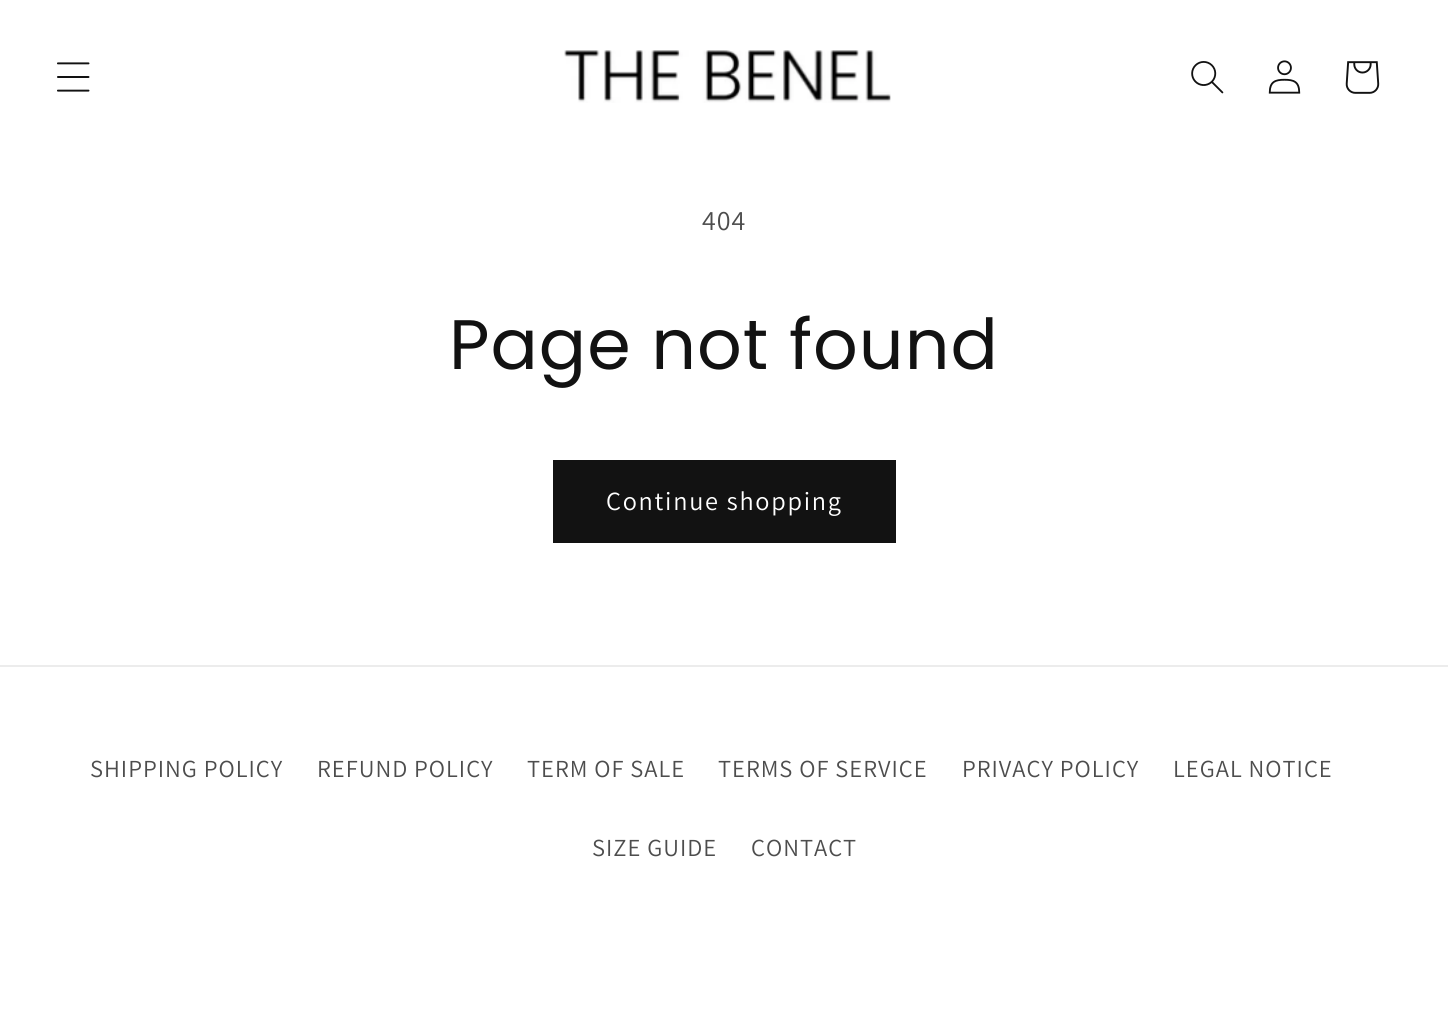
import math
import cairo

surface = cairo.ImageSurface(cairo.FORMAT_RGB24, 1448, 1015)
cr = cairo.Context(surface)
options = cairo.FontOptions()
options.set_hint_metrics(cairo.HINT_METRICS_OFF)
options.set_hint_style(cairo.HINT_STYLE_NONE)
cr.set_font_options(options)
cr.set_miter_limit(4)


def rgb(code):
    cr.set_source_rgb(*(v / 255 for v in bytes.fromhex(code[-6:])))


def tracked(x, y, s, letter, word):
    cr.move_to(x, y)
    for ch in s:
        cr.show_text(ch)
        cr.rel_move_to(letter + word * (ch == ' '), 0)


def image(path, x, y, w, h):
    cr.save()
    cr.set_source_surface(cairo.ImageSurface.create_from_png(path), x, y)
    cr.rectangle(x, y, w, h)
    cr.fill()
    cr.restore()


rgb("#ffffff")
cr.paint()
image("img/1.png", 57, 62, 33, 30)
image("img/2.png", 564, 50, 327, 53)
image("img/3.png", 1191, 61, 33, 33)
image("img/4.png", 1268, 60, 33, 34)
image("img/5.png", 1345, 61, 35, 33)
rgb("#121212")
cr.rectangle(553, 460, 343, 83)
cr.fill()
rgb("#ececec")
cr.rectangle(0, 665, 1448, 2)
cr.fill()
cr.select_font_face("Assistant")
cr.set_font_size(28)
rgb("#4d4d4d")
tracked(702, 230, "404", 1, 0)
cr.select_font_face("Poppins")
cr.set_font_size(70)
rgb("#121212")
tracked(449, 369, "Page not found", 1, 0)
cr.select_font_face("Assistant")
cr.set_font_size(26.25)
rgb("#ffffff")
tracked(606, 510, "Continue shopping", 1.75, 0)
cr.set_font_size(24.5)
rgb("#4d4d4d")
for x, y, s in [
    (90, 777, "SHIPPING POLICY"),
    (317, 777, "REFUND POLICY"),
    (527, 777, "TERM OF SALE"),
    (718, 777, "TERMS OF SERVICE"),
    (962, 777, "PRIVACY POLICY"),
    (1173, 777, "LEGAL NOTICE"),
    (592, 856, "SIZE GUIDE"),
    (751, 856, "CONTACT"),
]:
    tracked(x, y, s, 1, 0)
surface.write_to_png("page.png")
